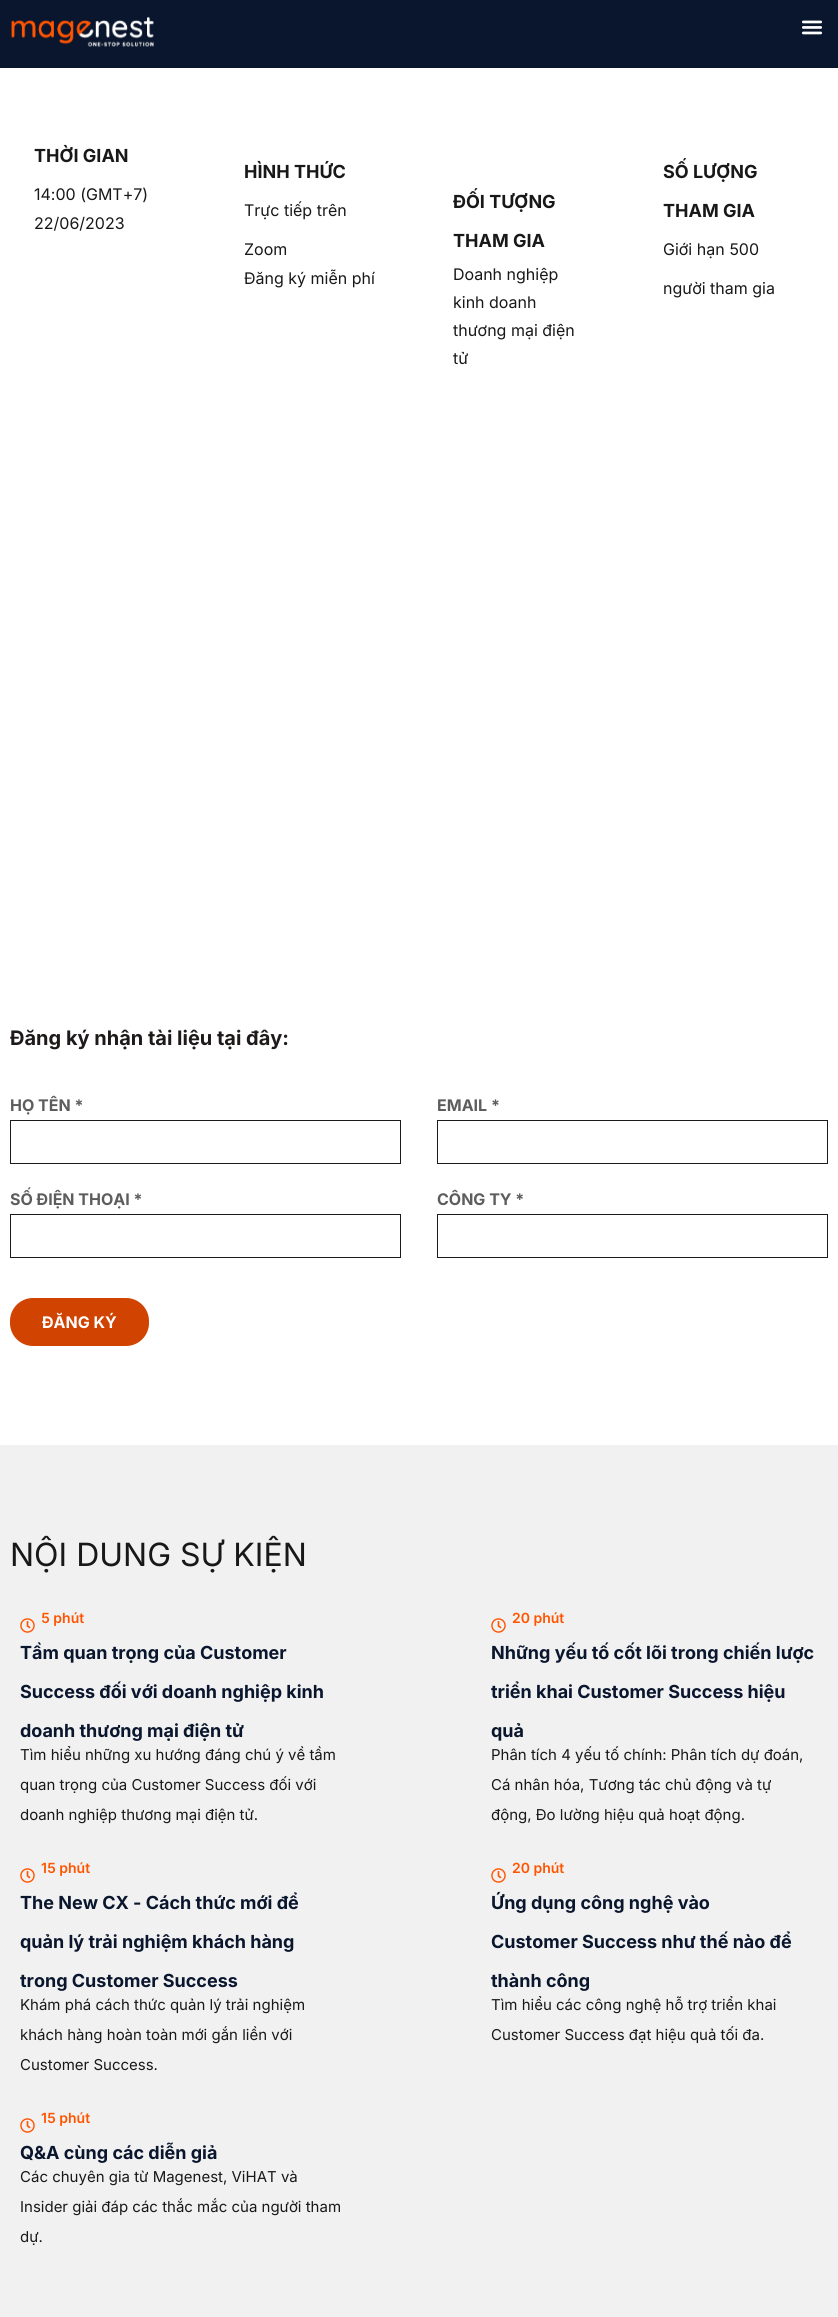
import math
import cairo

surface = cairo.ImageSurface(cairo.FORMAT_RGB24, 838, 2317)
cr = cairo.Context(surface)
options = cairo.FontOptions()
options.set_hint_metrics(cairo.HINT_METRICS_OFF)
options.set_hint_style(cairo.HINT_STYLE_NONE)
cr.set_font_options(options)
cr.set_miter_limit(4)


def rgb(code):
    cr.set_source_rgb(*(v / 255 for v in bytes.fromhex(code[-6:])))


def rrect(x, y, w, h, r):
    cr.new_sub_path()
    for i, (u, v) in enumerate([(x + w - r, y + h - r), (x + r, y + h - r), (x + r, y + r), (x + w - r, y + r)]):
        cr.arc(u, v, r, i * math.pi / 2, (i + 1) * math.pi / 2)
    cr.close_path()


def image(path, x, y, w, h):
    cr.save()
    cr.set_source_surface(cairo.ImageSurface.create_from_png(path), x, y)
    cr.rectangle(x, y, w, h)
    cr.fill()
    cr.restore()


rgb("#ffffff")
cr.paint()
rgb("#0a162d")
cr.rectangle(0, 0, 838, 68)
cr.fill()
image("img/1.png", 11, 16, 143, 31)
image("img/2.png", 801, 20, 22, 15)
cr.rectangle(10.5, 1120.5, 390, 43)
rgb("#1e1a1a")
cr.set_line_width(1)
cr.stroke()
cr.rectangle(437.5, 1120.5, 390, 43)
cr.stroke()
cr.rectangle(10.5, 1214.5, 390, 43)
cr.stroke()
cr.rectangle(437.5, 1214.5, 390, 43)
cr.stroke()
rgb("#d14300")
rrect(11, 1299, 137, 46, 22)
cr.fill_preserve()
cr.set_line_width(2)
cr.stroke()
rgb("#f1f1f1")
cr.rectangle(0, 1445, 838, 872)
cr.fill()
image("img/3.png", 20, 1618, 15, 15)
image("img/3.png", 491, 1618, 15, 15)
image("img/3.png", 20, 1868, 15, 15)
image("img/3.png", 491, 1868, 15, 15)
image("img/3.png", 20, 2118, 15, 15)
cr.select_font_face("Inter", cairo.FONT_SLANT_NORMAL, cairo.FONT_WEIGHT_BOLD)
cr.set_font_size(18)
rgb("#181818")
cr.move_to(34, 162)
cr.show_text("THỜI GIAN")
cr.select_font_face("Inter")
cr.set_font_size(16)
cr.move_to(34, 200)
cr.show_text("14:00 (GMT+7)")
cr.move_to(34, 229)
cr.show_text("22/06/2023")
cr.select_font_face("Inter", cairo.FONT_SLANT_NORMAL, cairo.FONT_WEIGHT_BOLD)
cr.set_font_size(18)
cr.move_to(244, 178)
cr.show_text("HÌNH THỨC")
cr.select_font_face("Inter")
cr.set_font_size(16)
for x, y, s in [
    (244, 216, "Trực tiếp trên"),
    (244, 255, "Zoom"),
    (244, 284, "Đăng ký miễn phí"),
]:
    cr.move_to(x, y)
    cr.show_text(s)
cr.select_font_face("Inter", cairo.FONT_SLANT_NORMAL, cairo.FONT_WEIGHT_BOLD)
cr.set_font_size(18)
cr.move_to(453, 208)
cr.show_text("ĐỐI TƯỢNG")
cr.move_to(453, 247)
cr.show_text("THAM GIA")
cr.select_font_face("Inter")
cr.set_font_size(16)
for x, y, s in [
    (453, 280, "Doanh nghiệp"),
    (453, 308, "kinh doanh"),
    (453, 336, "thương mại điện"),
    (453, 364, "tử"),
]:
    cr.move_to(x, y)
    cr.show_text(s)
cr.select_font_face("Inter", cairo.FONT_SLANT_NORMAL, cairo.FONT_WEIGHT_BOLD)
cr.set_font_size(18)
cr.move_to(663, 178)
cr.show_text("SỐ LƯỢNG")
cr.move_to(663, 217)
cr.show_text("THAM GIA")
cr.select_font_face("Inter")
cr.set_font_size(16)
cr.move_to(663, 255)
cr.show_text("Giới hạn 500")
cr.move_to(663, 294)
cr.show_text("người tham gia")
cr.select_font_face("Inter", cairo.FONT_SLANT_NORMAL, cairo.FONT_WEIGHT_BOLD)
cr.set_font_size(20)
rgb("#1e1a1a")
cr.move_to(10, 1045)
cr.show_text("Đăng ký nhận tài liệu tại đây:")
cr.set_font_size(16)
rgb("#5d5d5d")
for x, y, s in [
    (10, 1111, "HỌ TÊN *"),
    (437, 1111, "EMAIL *"),
    (10, 1205, "SỐ ĐIỆN THOẠI *"),
    (437, 1205, "CÔNG TY *"),
]:
    cr.move_to(x, y)
    cr.show_text(s)
rgb("#ffffff")
cr.move_to(42, 1328)
cr.show_text("ĐĂNG KÝ")
cr.select_font_face("Inter")
cr.set_font_size(32)
rgb("#181818")
cr.move_to(10, 1566)
cr.show_text("NỘI DUNG SỰ KIỆN")
cr.select_font_face("Inter SemiBold")
cr.set_font_size(14)
rgb("#ff5500")
cr.move_to(41, 1623)
cr.show_text("5 phút")
cr.select_font_face("Inter", cairo.FONT_SLANT_NORMAL, cairo.FONT_WEIGHT_BOLD)
cr.set_font_size(18)
rgb("#0a162d")
for x, y, s in [
    (20, 1659, "Tầm quan trọng của Customer"),
    (20, 1698, "Success đối với doanh nghiệp kinh"),
    (20, 1737, "doanh thương mại điện tử"),
]:
    cr.move_to(x, y)
    cr.show_text(s)
cr.select_font_face("Inter")
cr.set_font_size(15)
rgb("#181818")
for x, y, s in [
    (20, 1760, "Tìm hiểu những xu hướng đáng chú ý về tầm"),
    (20, 1790, "quan trọng của Customer Success đối với"),
    (20, 1820, "doanh nghiệp thương mại điện tử."),
]:
    cr.move_to(x, y)
    cr.show_text(s)
cr.select_font_face("Inter SemiBold")
cr.set_font_size(14)
rgb("#ff5500")
cr.move_to(512, 1623)
cr.show_text("20 phút")
cr.select_font_face("Inter", cairo.FONT_SLANT_NORMAL, cairo.FONT_WEIGHT_BOLD)
cr.set_font_size(18)
rgb("#0a162d")
for x, y, s in [
    (491, 1659, "Những yếu tố cốt lõi trong chiến lược"),
    (491, 1698, "triển khai Customer Success hiệu"),
    (491, 1737, "quả"),
]:
    cr.move_to(x, y)
    cr.show_text(s)
cr.select_font_face("Inter")
cr.set_font_size(15)
rgb("#181818")
for x, y, s in [
    (491, 1760, "Phân tích 4 yếu tố chính: Phân tích dự đoán,"),
    (491, 1790, "Cá nhân hóa, Tương tác chủ động và tự"),
    (491, 1820, "động, Đo lường hiệu quả hoạt động."),
]:
    cr.move_to(x, y)
    cr.show_text(s)
cr.select_font_face("Inter SemiBold")
cr.set_font_size(14)
rgb("#ff5500")
cr.move_to(41, 1873)
cr.show_text("15 phút")
cr.select_font_face("Inter", cairo.FONT_SLANT_NORMAL, cairo.FONT_WEIGHT_BOLD)
cr.set_font_size(18)
rgb("#0a162d")
for x, y, s in [
    (20, 1909, "The New CX - Cách thức mới để"),
    (20, 1948, "quản lý trải nghiệm khách hàng"),
    (20, 1987, "trong Customer Success"),
]:
    cr.move_to(x, y)
    cr.show_text(s)
cr.select_font_face("Inter")
cr.set_font_size(15)
rgb("#181818")
for x, y, s in [
    (20, 2010, "Khám phá cách thức quản lý trải nghiệm"),
    (20, 2040, "khách hàng hoàn toàn mới gắn liền với"),
    (20, 2070, "Customer Success."),
]:
    cr.move_to(x, y)
    cr.show_text(s)
cr.select_font_face("Inter SemiBold")
cr.set_font_size(14)
rgb("#ff5500")
cr.move_to(512, 1873)
cr.show_text("20 phút")
cr.select_font_face("Inter", cairo.FONT_SLANT_NORMAL, cairo.FONT_WEIGHT_BOLD)
cr.set_font_size(18)
rgb("#0a162d")
for x, y, s in [
    (491, 1909, "Ứng dụng công nghệ vào"),
    (491, 1948, "Customer Success như thế nào để"),
    (491, 1987, "thành công"),
]:
    cr.move_to(x, y)
    cr.show_text(s)
cr.select_font_face("Inter")
cr.set_font_size(15)
rgb("#181818")
cr.move_to(491, 2010)
cr.show_text("Tìm hiểu các công nghệ hỗ trợ triển khai")
cr.move_to(491, 2040)
cr.show_text("Customer Success đạt hiệu quả tối đa.")
cr.select_font_face("Inter SemiBold")
cr.set_font_size(14)
rgb("#ff5500")
cr.move_to(41, 2123)
cr.show_text("15 phút")
cr.select_font_face("Inter", cairo.FONT_SLANT_NORMAL, cairo.FONT_WEIGHT_BOLD)
cr.set_font_size(18)
rgb("#0a162d")
cr.move_to(20, 2159)
cr.show_text("Q&A cùng các diễn giả")
cr.select_font_face("Inter")
cr.set_font_size(15)
rgb("#181818")
for x, y, s in [
    (20, 2182, "Các chuyên gia từ Magenest, ViHAT và"),
    (20, 2212, "Insider giải đáp các thắc mắc của người tham"),
    (20, 2242, "dự."),
]:
    cr.move_to(x, y)
    cr.show_text(s)
surface.write_to_png("page.png")
